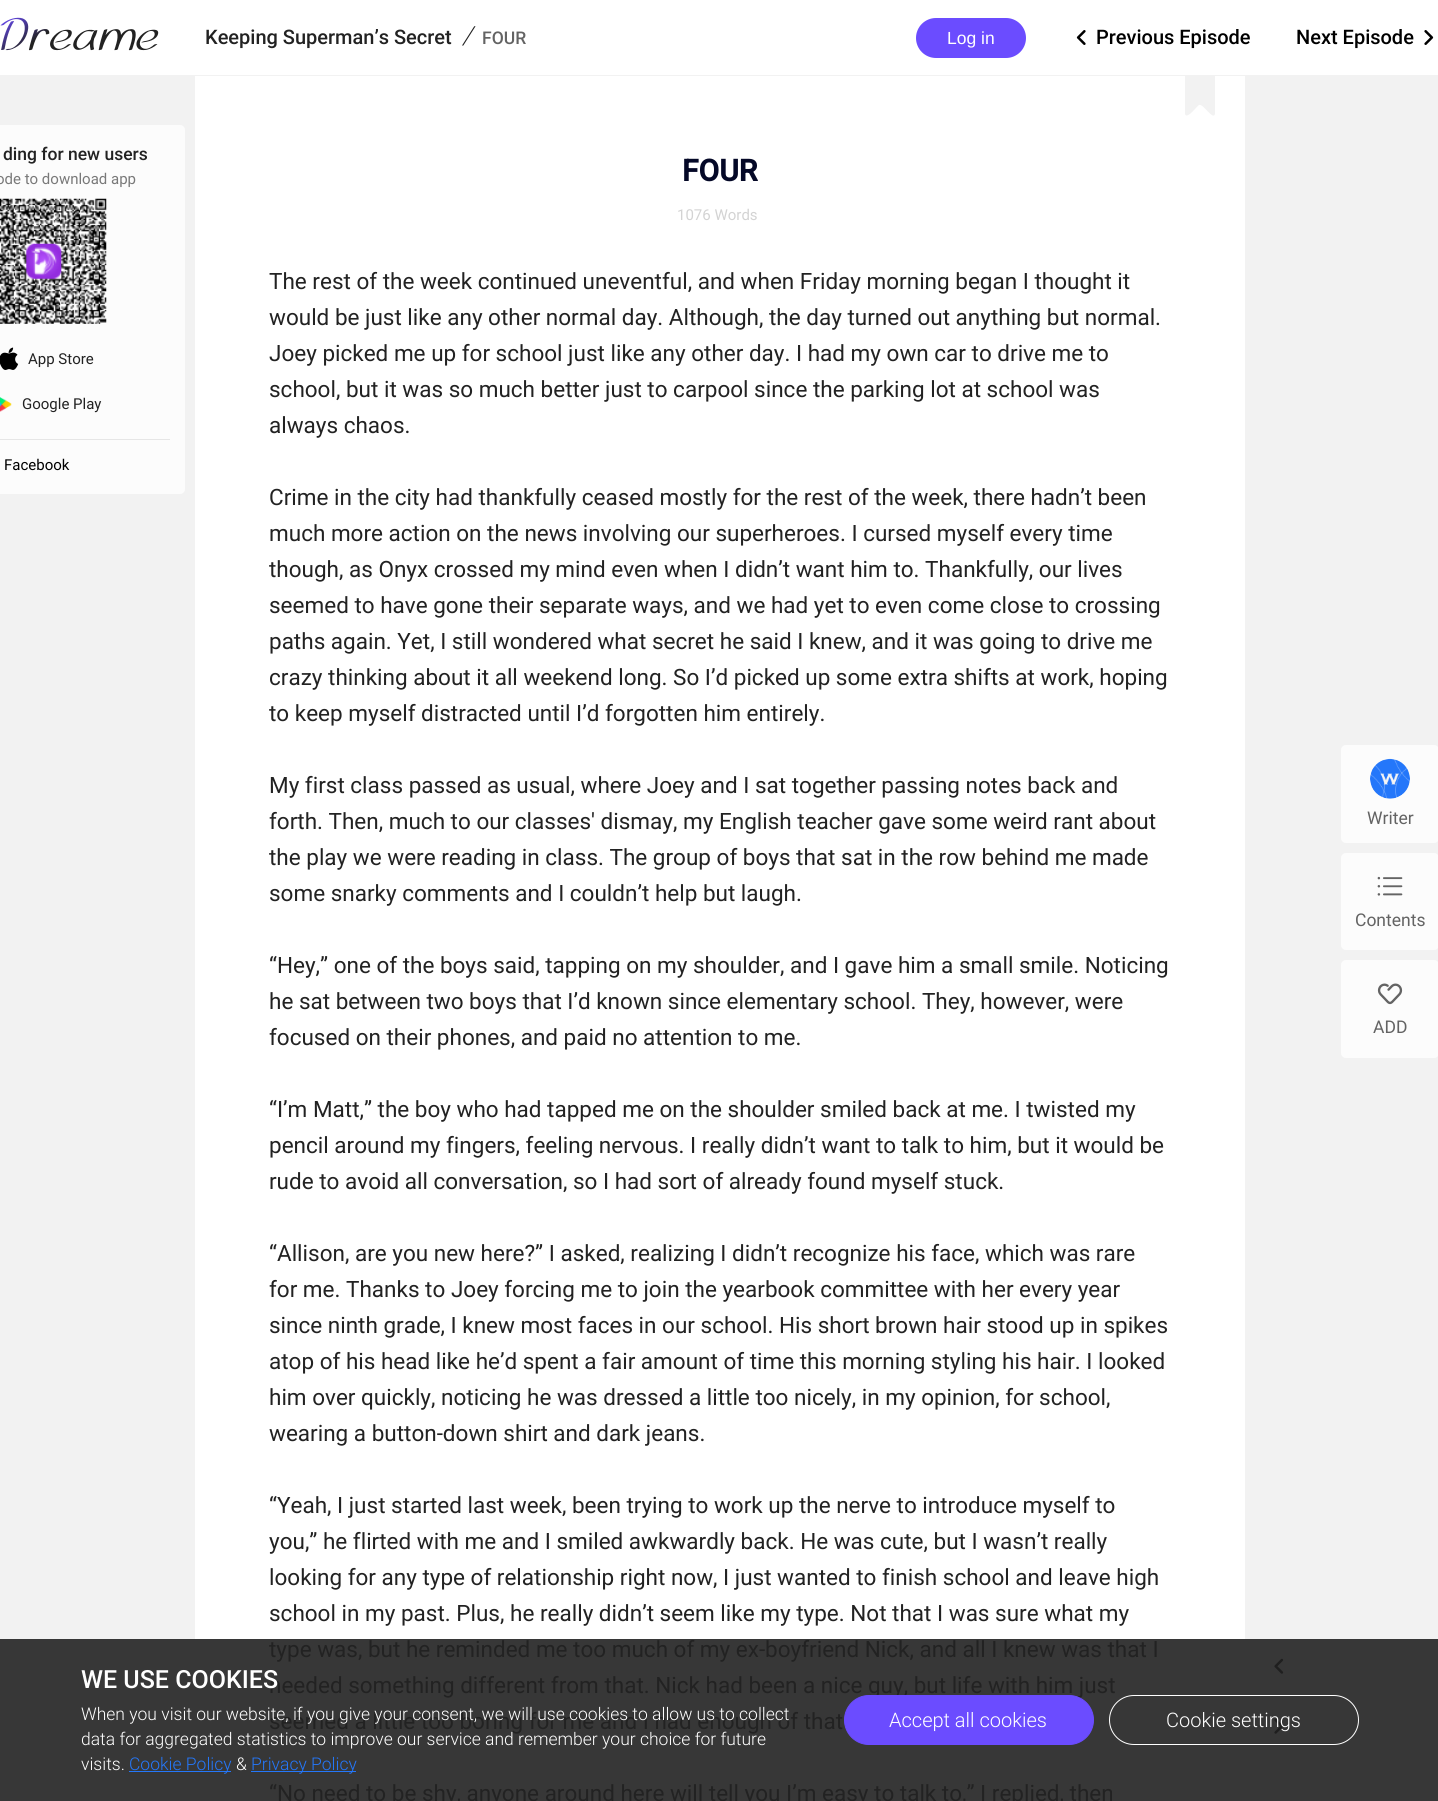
import math
import cairo

surface = cairo.ImageSurface(cairo.FORMAT_RGB24, 1438, 1801)
cr = cairo.Context(surface)
options = cairo.FontOptions()
options.set_hint_metrics(cairo.HINT_METRICS_OFF)
options.set_hint_style(cairo.HINT_STYLE_NONE)
cr.set_font_options(options)
cr.set_miter_limit(4)


def rgb(code):
    cr.set_source_rgb(*(v / 255 for v in bytes.fromhex(code[-6:])))


def rrect(x, y, w, h, r):
    cr.new_sub_path()
    for i, (u, v) in enumerate([(x + w - r, y + h - r), (x + r, y + h - r), (x + r, y + r), (x + w - r, y + r)]):
        cr.arc(u, v, r, i * math.pi / 2, (i + 1) * math.pi / 2)
    cr.close_path()


def image(path, x, y, w, h):
    cr.save()
    cr.set_source_surface(cairo.ImageSurface.create_from_png(path), x, y)
    cr.rectangle(x, y, w, h)
    cr.fill()
    cr.restore()


rgb("#f2f2f2")
cr.paint()
rgb("#373737")
cr.rectangle(0, 1639, 1438, 162)
cr.fill()
rgb("#ffffff")
cr.rectangle(0, 0, 1438, 75)
cr.fill()
image("img/1.png", 0, 17, 159, 34)
rgb("#6b4cff")
rrect(916, 18, 110, 40, 20)
cr.fill()
image("img/2.png", 1076, 30, 10, 15)
image("img/3.png", 1424, 30, 10, 15)
rgb("#ffffff")
cr.rectangle(195, 76, 1050, 1563)
cr.fill()
rgb("#f2f2f2")
cr.new_path()
cr.move_to(1185, 76)
cr.line_to(1215, 76)
cr.line_to(1215, 114)
cr.curve_to(1213, 121, 1203, 103, 1199, 105)
cr.curve_to(1197, 106, 1187, 120, 1185, 114)
cr.close_path()
cr.fill()
rgb("#fcfcfc")
rrect(-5, 125, 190, 369, 5)
cr.fill()
image("img/4.png", 0, 198, 107, 126)
rgb("#e6e6e6")
cr.rectangle(0, 439, 170, 1)
cr.fill()
image("img/5.png", 0, 347, 19, 23)
image("img/6.png", 0, 397, 12, 15)
rgb("#fcfcfc")
rrect(1341, 745, 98, 98, 5)
cr.fill()
image("img/7.png", 1370, 758, 40, 41)
rrect(1341, 853, 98, 97, 5)
cr.fill()
image("img/8.png", 1377, 876, 26, 20)
rrect(1341, 960, 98, 98, 5)
cr.fill()
image("img/9.png", 1377, 983, 26, 22)
image("img/10.png", 1274, 1658, 10, 16)
image("img/11.png", 1274, 1718, 10, 16)
rgb("#2477fa")
cr.rectangle(129, 1771, 102, 1)
cr.fill()
cr.rectangle(251, 1771, 105, 1)
cr.fill()
cr.select_font_face("Roboto Medium")
cr.set_font_size(20)
rgb("#222222")
cr.move_to(205, 44)
cr.show_text("Keeping Superman’s Secret")
cr.select_font_face("Roboto Light", cairo.FONT_SLANT_ITALIC)
cr.set_font_size(25)
cr.move_to(462, 44)
cr.show_text("/")
cr.select_font_face("Roboto Medium")
cr.set_font_size(17.5)
rgb("#636363")
cr.move_to(482, 44)
cr.show_text("FOUR")
cr.select_font_face("Liberation Sans")
rgb("#ffffff")
cr.move_to(947, 44)
cr.show_text("Log in")
cr.select_font_face("Roboto Medium")
cr.set_font_size(20)
rgb("#000000")
cr.move_to(1096, 44)
cr.show_text("Previous Episode")
cr.move_to(1296, 44)
cr.show_text("Next Episode")
cr.set_font_size(17.5)
rgb("#222222")
cr.move_to(3, 160)
cr.show_text("ding for new users")
cr.select_font_face("Roboto")
cr.set_font_size(15)
rgb("#797979")
cr.move_to(-4, 184)
cr.show_text("ode to download app")
rgb("#222222")
cr.move_to(28, 364)
cr.show_text("App Store")
cr.move_to(22, 409)
cr.show_text("Google Play")
rgb("#000000")
cr.move_to(4, 470)
cr.show_text("Facebook")
cr.select_font_face("Roboto", cairo.FONT_SLANT_NORMAL, cairo.FONT_WEIGHT_BOLD)
cr.set_font_size(30)
rgb("#040827")
cr.move_to(682, 181)
cr.show_text("FOUR")
cr.select_font_face("Roboto")
cr.set_font_size(15)
rgb("#d3d3d3")
cr.move_to(677, 220)
cr.show_text("1076 Words")
cr.set_font_size(22.5)
rgb("#222222")
for x, y, s in [
    (269, 289, "The rest of the week continued uneventful, and when Friday morning began I thought it"),
    (269, 325, "would be just like any other normal day. Although, the day turned out anything but normal."),
    (269, 361, "Joey picked me up for school just like any other day. I had my own car to drive me to"),
    (269, 397, "school, but it was so much better just to carpool since the parking lot at school was"),
    (269, 433, "always chaos."),
    (269, 505, "Crime in the city had thankfully ceased mostly for the rest of the week, there hadn’t been"),
    (269, 541, "much more action on the news involving our superheroes. I cursed myself every time"),
    (269, 577, "though, as Onyx crossed my mind even when I didn’t want him to. Thankfully, our lives"),
    (269, 613, "seemed to have gone their separate ways, and we had yet to even come close to crossing"),
    (269, 649, "paths again. Yet, I still wondered what secret he said I knew, and it was going to drive me"),
    (269, 685, "crazy thinking about it all weekend long. So I’d picked up some extra shifts at work, hoping"),
    (269, 721, "to keep myself distracted until I’d forgotten him entirely."),
    (269, 793, "My first class passed as usual, where Joey and I sat together passing notes back and"),
    (269, 829, "forth. Then, much to our classes' dismay, my English teacher gave some weird rant about"),
    (269, 865, "the play we were reading in class. The group of boys that sat in the row behind me made"),
    (269, 901, "some snarky comments and I couldn’t help but laugh."),
    (269, 973, "“Hey,” one of the boys said, tapping on my shoulder, and I gave him a small smile. Noticing"),
    (269, 1009, "he sat between two boys that I’d known since elementary school. They, however, were"),
    (269, 1045, "focused on their phones, and paid no attention to me."),
    (269, 1117, "“I’m Matt,” the boy who had tapped me on the shoulder smiled back at me. I twisted my"),
    (269, 1153, "pencil around my fingers, feeling nervous. I really didn’t want to talk to him, but it would be"),
    (269, 1189, "rude to avoid all conversation, so I had sort of already found myself stuck."),
    (269, 1261, "“Allison, are you new here?” I asked, realizing I didn’t recognize his face, which was rare"),
    (269, 1297, "for me. Thanks to Joey forcing me to join the yearbook committee with her every year"),
    (269, 1333, "since ninth grade, I knew most faces in our school. His short brown hair stood up in spikes"),
    (269, 1369, "atop of his head like he’d spent a fair amount of time this morning styling his hair. I looked"),
    (269, 1405, "him over quickly, noticing he was dressed a little too nicely, in my opinion, for school,"),
    (269, 1441, "wearing a button-down shirt and dark jeans."),
    (269, 1513, "“Yeah, I just started last week, been trying to work up the nerve to introduce myself to"),
    (269, 1549, "you,” he flirted with me and I smiled awkwardly back. He was cute, but I wasn’t really"),
    (269, 1585, "looking for any type of relationship right now, I just wanted to finish school and leave high"),
    (269, 1621, "school in my past. Plus, he really didn’t seem like my type. Not that I was sure what my"),
    (269, 1657, "type was, but he reminded me too much of my ex-boyfriend Nick, and all I knew was that I"),
    (269, 1693, "needed something different from that. Nick had been a nice guy, but life with him just"),
    (269, 1729, "seemed a little too boring for me and I had enough of that"),
    (269, 1801, "“No need to be shy, anyone around here will tell you I’m easy to talk to,” I replied, then"),
]:
    cr.move_to(x, y)
    cr.show_text(s)
cr.set_font_size(17.5)
rgb("#636363")
for x, y, s in [
    (1367, 824, "Writer"),
    (1355, 926, "Contents"),
    (1373, 1033, "ADD"),
]:
    cr.move_to(x, y)
    cr.show_text(s)
cr.select_font_face("Roboto Medium")
cr.set_font_size(25)
rgb("#ffffff")
cr.move_to(81, 1688)
cr.show_text("WE USE COOKIES")
cr.select_font_face("Roboto Light")
cr.set_font_size(17.5)
for x, y, s in [
    (81, 1720, "When you visit our website, if you give your consent, we will use cookies to allow us to collect"),
    (81, 1745, "data for aggregated statistics to improve our service and remember your choice for future"),
    (81, 1770, "visits."),
]:
    cr.move_to(x, y)
    cr.show_text(s)
rgb("#2477fa")
cr.move_to(129, 1770)
cr.show_text("Cookie Policy")
rgb("#ffffff")
cr.move_to(236, 1770)
cr.show_text("&")
rgb("#2477fa")
cr.move_to(251, 1770)
cr.show_text("Privacy Policy")
rgb("#6b4cff")
rrect(844.5, 1695.5, 249, 49, 24.5)
cr.fill_preserve()
cr.set_line_width(1)
cr.stroke()
cr.set_font_size(20)
rgb("#ffffff")
cr.move_to(889, 1727)
cr.show_text("Accept all cookies")
rrect(1109.5, 1695.5, 249, 49, 24.5)
cr.stroke()
cr.move_to(1166, 1727)
cr.show_text("Cookie settings")
surface.write_to_png("page.png")
